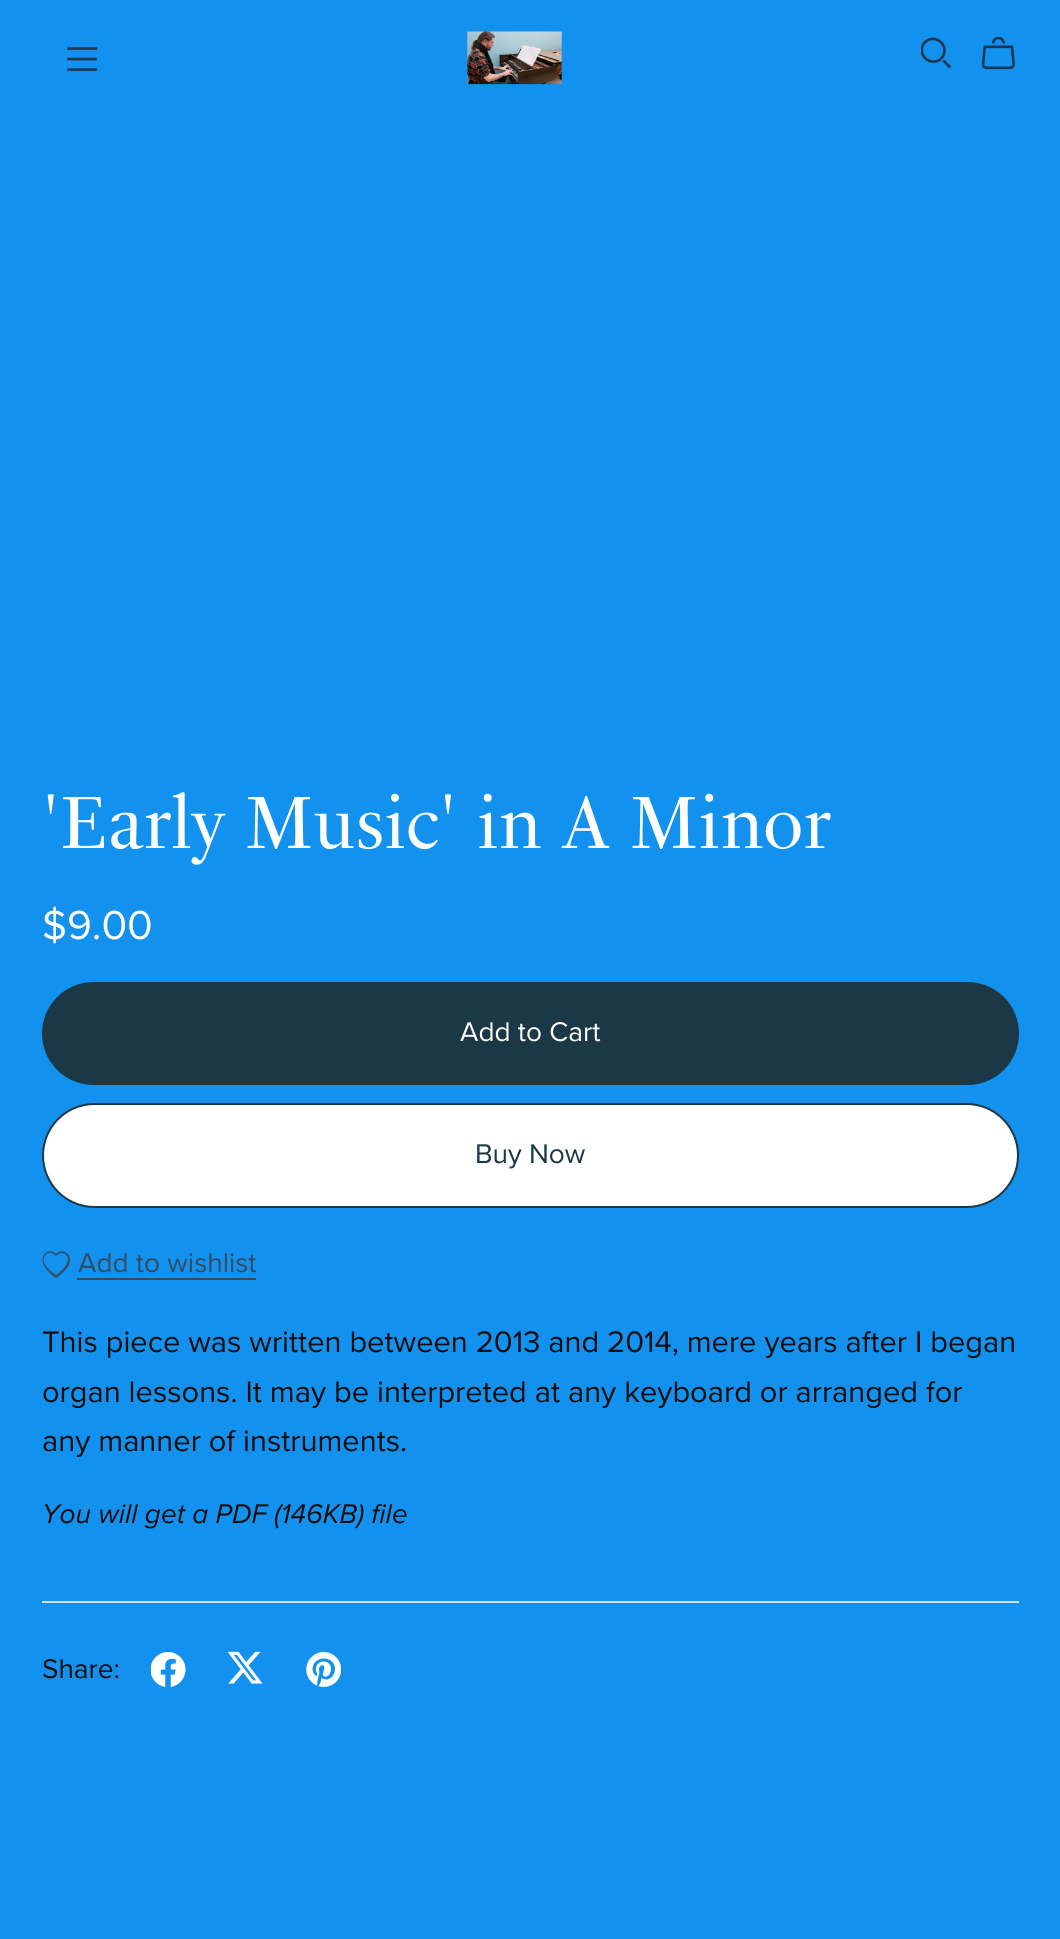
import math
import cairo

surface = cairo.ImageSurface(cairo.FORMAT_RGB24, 1060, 1939)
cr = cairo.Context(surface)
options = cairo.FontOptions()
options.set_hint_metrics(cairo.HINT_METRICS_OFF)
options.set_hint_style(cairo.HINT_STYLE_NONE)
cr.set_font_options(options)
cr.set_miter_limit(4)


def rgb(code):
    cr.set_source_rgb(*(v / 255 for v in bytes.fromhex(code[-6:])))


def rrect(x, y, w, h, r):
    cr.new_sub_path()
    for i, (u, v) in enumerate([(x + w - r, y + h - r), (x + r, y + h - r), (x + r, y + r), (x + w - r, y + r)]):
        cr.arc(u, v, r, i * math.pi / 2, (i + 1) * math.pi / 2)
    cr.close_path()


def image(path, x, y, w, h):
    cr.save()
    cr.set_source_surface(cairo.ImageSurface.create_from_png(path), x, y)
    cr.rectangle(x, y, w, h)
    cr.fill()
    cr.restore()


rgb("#1292ee")
cr.paint()
image("img/1.png", 67, 47, 31, 24)
image("img/2.png", 467, 31, 95, 54)
image("img/3.png", 921, 37, 31, 32)
image("img/4.png", 981, 37, 34, 33)
rgb("#1b3846")
rrect(43, 983, 975, 101, 50.5)
cr.fill_preserve()
cr.stroke()
rgb("#ffffff")
rrect(43, 1104, 975, 103, 51.5)
cr.fill_preserve()
rgb("#1b3846")
cr.stroke()
rgb("#344b60")
cr.rectangle(77, 1278, 179, 2)
cr.fill()
cr.new_path()
cr.move_to(56, 1256)
cr.curve_to(50, 1249, 41, 1255, 44, 1263)
cr.curve_to(47, 1268, 51, 1272, 56, 1275)
cr.curve_to(78, 1260, 64, 1248, 57, 1255)
cr.close_path()
cr.move_to(56, 1278)
cr.curve_to(30, 1260, 48, 1245, 56, 1254)
cr.curve_to(64, 1245, 83, 1260, 56, 1278)
cr.fill()
rgb("#dddddd")
cr.rectangle(42, 1601, 977, 2)
cr.fill()
image("img/5.png", 151, 1652, 35, 35)
image("img/6.png", 228, 1651, 35, 33)
image("img/7.png", 306, 1652, 35, 35)
cr.select_font_face("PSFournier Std")
cr.set_font_size(72.75)
rgb("#ffffff")
cr.move_to(42, 848)
cr.show_text("'Early Music' in A Minor")
cr.select_font_face("Proxima Nova")
cr.set_font_size(42)
cr.move_to(42, 939)
cr.show_text("$9.00")
cr.set_font_size(28)
cr.move_to(460, 1041)
cr.show_text("Add to Cart")
rgb("#1b3846")
cr.move_to(475, 1163)
cr.show_text("Buy Now")
rgb("#344b60")
cr.move_to(78, 1272)
cr.show_text("Add to wishlist")
cr.set_font_size(30.8)
rgb("#140d0d")
for x, y, s in [
    (42, 1352, "This piece was written between 2013 and 2014, mere years after I began"),
    (42, 1402, "organ lessons. It may be interpreted at any keyboard or arranged for"),
    (42, 1451, "any manner of instruments."),
]:
    cr.move_to(x, y)
    cr.show_text(s)
cr.select_font_face("Proxima Nova", cairo.FONT_SLANT_ITALIC)
cr.set_font_size(28)
cr.move_to(42, 1523)
cr.show_text("You will get a PDF (146KB) file")
cr.select_font_face("Proxima Nova")
cr.move_to(42, 1678)
cr.show_text("Share:")
surface.write_to_png("page.png")
